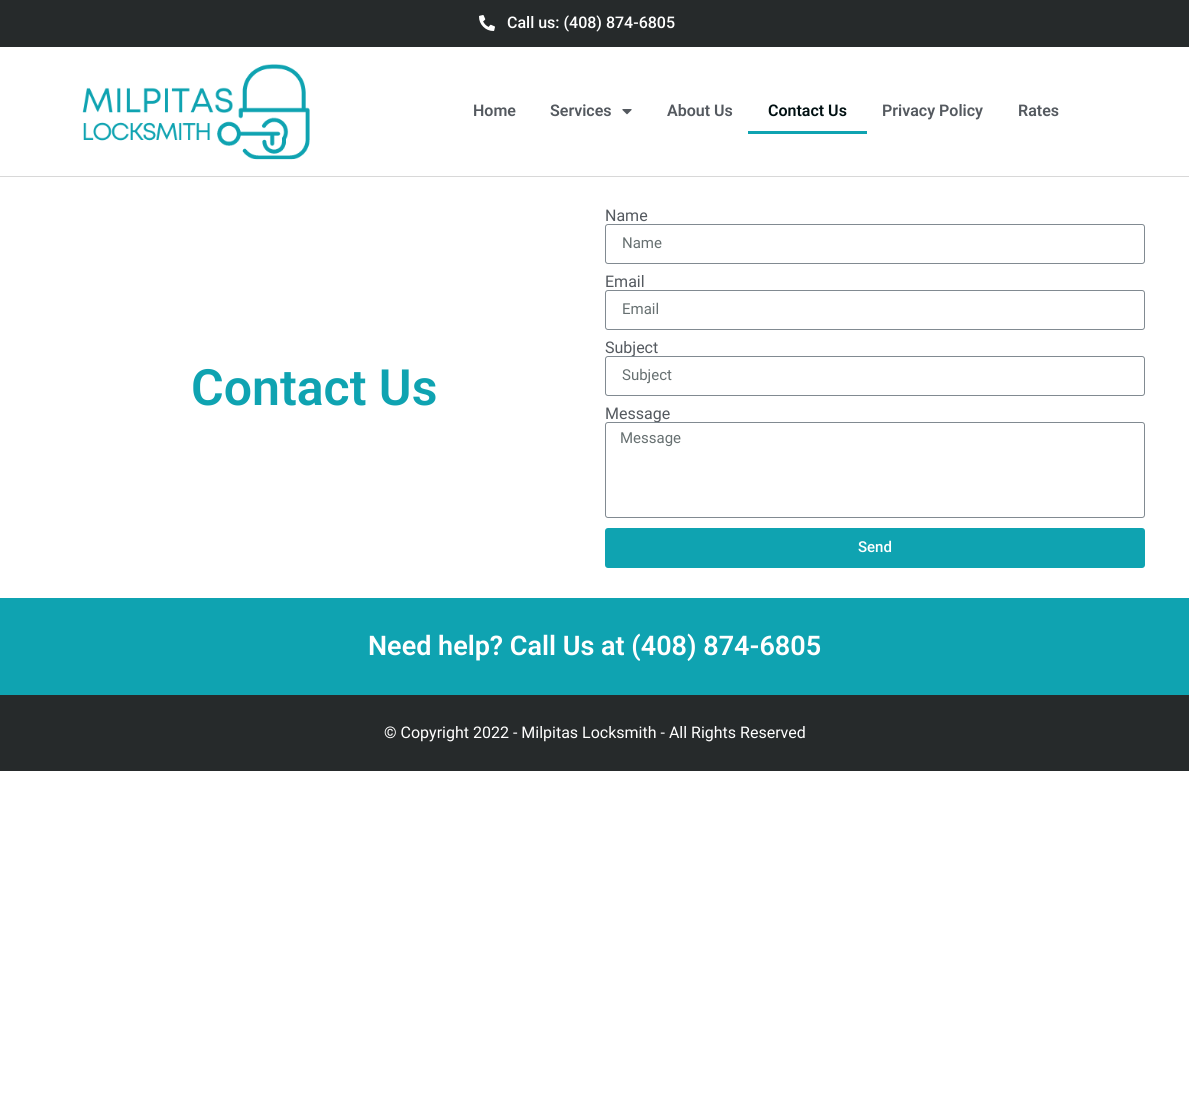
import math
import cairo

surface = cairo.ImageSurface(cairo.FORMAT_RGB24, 1189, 1099)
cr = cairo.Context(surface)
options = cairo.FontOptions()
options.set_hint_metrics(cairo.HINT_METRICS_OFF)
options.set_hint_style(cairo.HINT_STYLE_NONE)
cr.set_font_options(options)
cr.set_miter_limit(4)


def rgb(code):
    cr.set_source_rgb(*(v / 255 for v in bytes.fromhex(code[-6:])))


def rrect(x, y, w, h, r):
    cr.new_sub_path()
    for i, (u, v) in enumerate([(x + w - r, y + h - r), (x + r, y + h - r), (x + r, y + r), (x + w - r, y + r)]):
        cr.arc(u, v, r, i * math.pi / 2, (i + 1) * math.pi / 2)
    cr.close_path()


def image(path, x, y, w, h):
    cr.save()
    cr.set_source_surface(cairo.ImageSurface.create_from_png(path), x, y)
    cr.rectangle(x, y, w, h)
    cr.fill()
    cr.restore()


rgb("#ffffff")
cr.paint()
rgb("#262a2b")
cr.rectangle(0, 0, 1189, 47)
cr.fill()
image("img/1.png", 479, 15, 16, 16)
rgb("#d8d8d8")
cr.rectangle(0, 176, 1189, 1)
cr.fill()
image("img/2.png", 82, 64, 228, 96)
image("img/3.png", 622, 109, 10, 6)
rgb("#0fa3b1")
cr.rectangle(748, 131, 119, 3)
cr.fill()
rrect(605.5, 224.5, 539, 39, 2.5)
rgb("#818a91")
cr.set_line_width(1)
cr.stroke()
rrect(605.5, 290.5, 539, 39, 2.5)
cr.stroke()
rgb("#0fa3b1")
rrect(605, 528, 540, 40, 3)
cr.fill()
cr.rectangle(0, 598, 1189, 97)
cr.fill()
rgb("#262a2b")
cr.rectangle(0, 695, 1189, 76)
cr.fill()
cr.select_font_face("Roboto Medium")
cr.set_font_size(16)
rgb("#ffffff")
cr.move_to(507, 28)
cr.show_text("Call us: (408) 874-6805")
cr.select_font_face("Roboto SemiBold")
rgb("#54595f")
for x, y, s in [
    (473, 116, "Home"),
    (550, 116, "Services"),
    (667, 116, "About Us"),
]:
    cr.move_to(x, y)
    cr.show_text(s)
rgb("#011012")
cr.move_to(768, 116)
cr.show_text("Contact Us")
rgb("#54595f")
cr.move_to(882, 116)
cr.show_text("Privacy Policy")
cr.move_to(1018, 116)
cr.show_text("Rates")
cr.set_font_size(50)
rgb("#0fa3b1")
cr.move_to(191, 405)
cr.show_text("Contact Us")
cr.select_font_face("Roboto")
cr.set_font_size(16)
rgb("#54595f")
cr.move_to(605, 221)
cr.show_text("Name")
cr.set_font_size(15)
rgb("#677071")
cr.move_to(622, 248)
cr.show_text("Name")
cr.set_font_size(16)
rgb("#54595f")
cr.move_to(605, 287)
cr.show_text("Email")
cr.set_font_size(15)
rgb("#677071")
cr.move_to(622, 314)
cr.show_text("Email")
cr.set_font_size(16)
rgb("#54595f")
cr.move_to(605, 353)
cr.show_text("Subject")
rgb("#ffffff")
rrect(605.5, 356.5, 539, 39, 2.5)
cr.fill_preserve()
rgb("#818a91")
cr.stroke()
cr.set_font_size(15)
rgb("#677071")
cr.move_to(622, 380)
cr.show_text("Subject")
cr.set_font_size(16)
rgb("#54595f")
cr.move_to(605, 419)
cr.show_text("Message")
rgb("#ffffff")
rrect(605.5, 422.5, 539, 95, 2.5)
cr.fill_preserve()
rgb("#818a91")
cr.stroke()
cr.set_font_size(15)
rgb("#677071")
cr.move_to(620, 443)
cr.show_text("Message")
cr.select_font_face("Roboto Medium")
rgb("#ffffff")
cr.move_to(858, 552)
cr.show_text("Send")
cr.select_font_face("Roboto SemiBold")
cr.set_font_size(27)
cr.move_to(368, 655)
cr.show_text("Need help? Call Us at (408) 874-6805")
cr.select_font_face("Roboto")
cr.set_font_size(16)
cr.move_to(384, 738)
cr.show_text("© Copyright 2022 - Milpitas Locksmith - All Rights Reserved")
surface.write_to_png("page.png")
